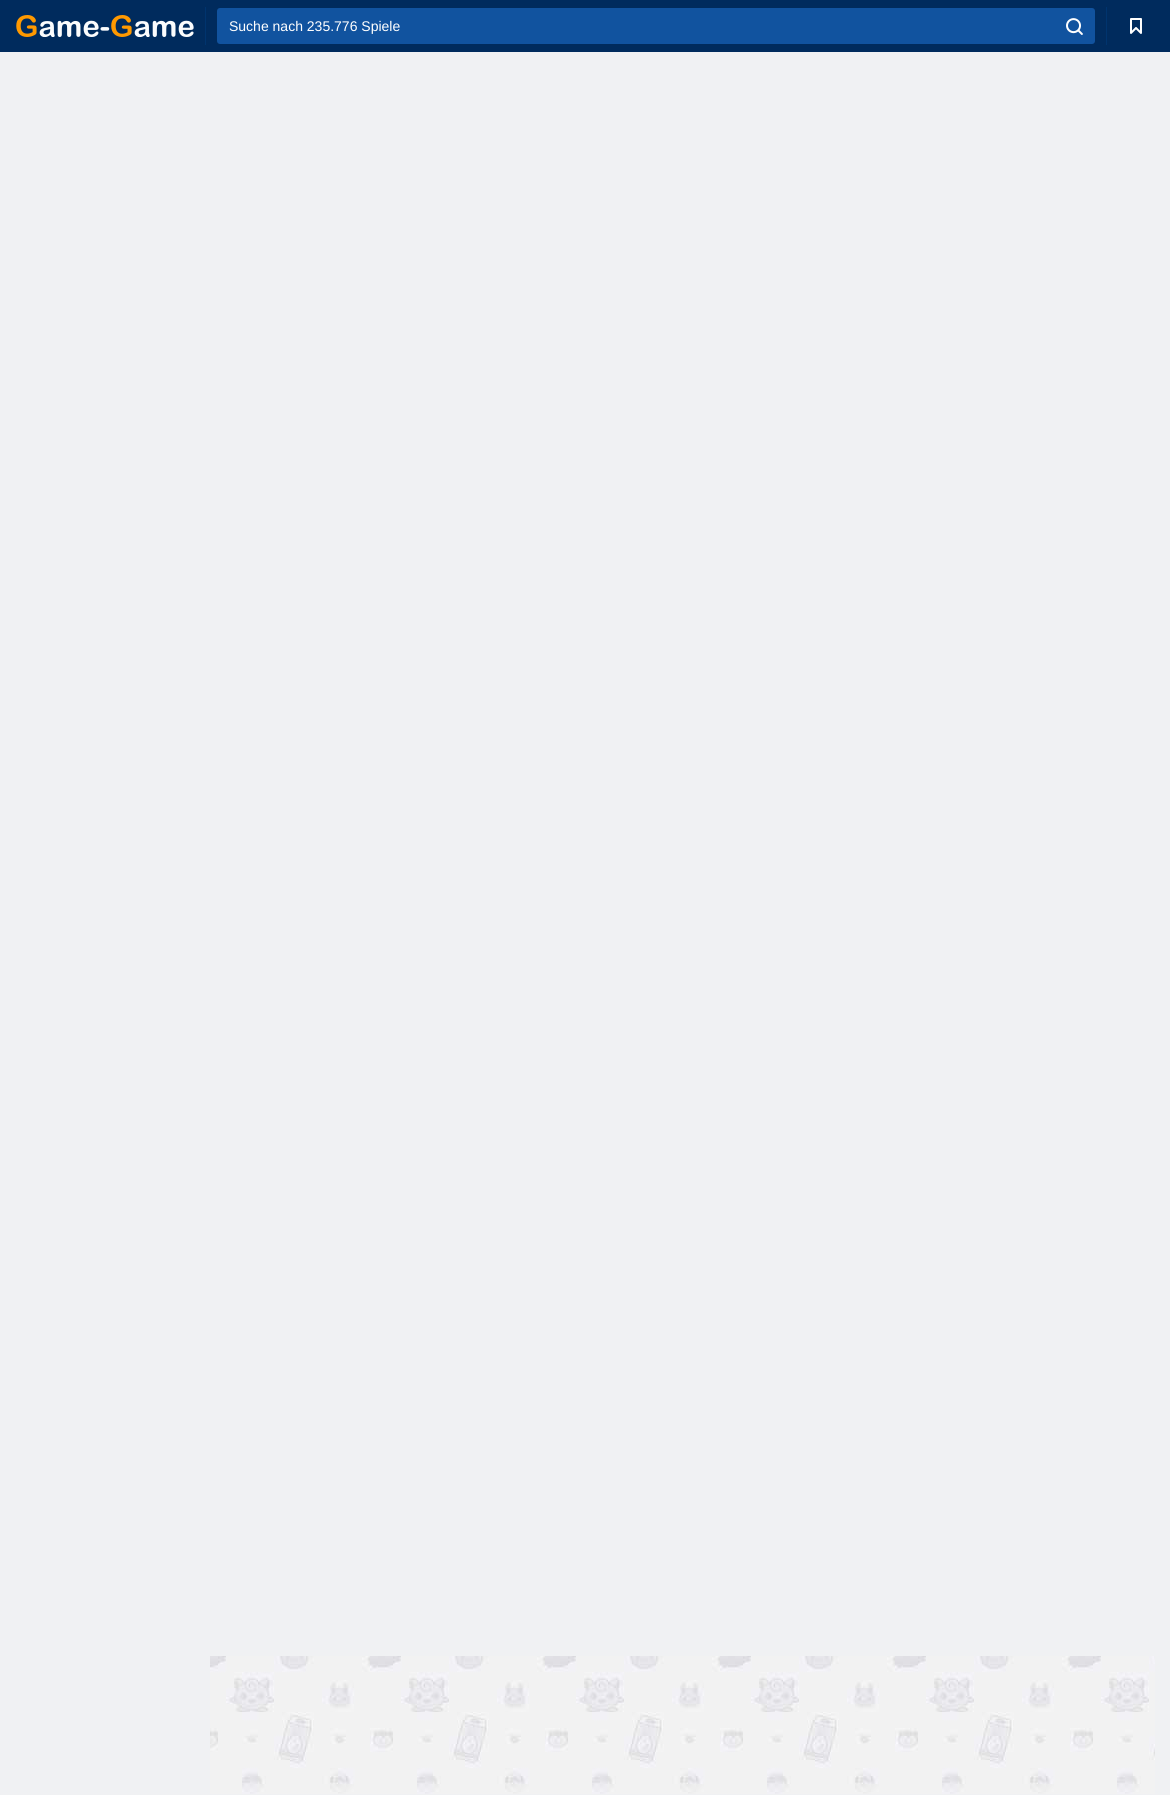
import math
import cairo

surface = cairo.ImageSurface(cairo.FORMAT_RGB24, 1170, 1795)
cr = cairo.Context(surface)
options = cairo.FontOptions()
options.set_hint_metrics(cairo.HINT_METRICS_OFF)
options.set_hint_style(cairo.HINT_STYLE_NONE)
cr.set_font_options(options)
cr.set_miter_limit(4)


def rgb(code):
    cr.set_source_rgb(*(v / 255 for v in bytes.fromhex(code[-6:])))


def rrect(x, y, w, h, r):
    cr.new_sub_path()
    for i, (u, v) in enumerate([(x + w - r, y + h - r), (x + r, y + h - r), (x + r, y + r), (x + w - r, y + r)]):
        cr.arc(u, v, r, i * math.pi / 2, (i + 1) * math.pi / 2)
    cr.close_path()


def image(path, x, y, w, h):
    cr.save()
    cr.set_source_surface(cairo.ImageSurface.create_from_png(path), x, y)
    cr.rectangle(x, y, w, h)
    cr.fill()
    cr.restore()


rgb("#f0f1f3")
cr.paint()
rgb("#002b5d")
cr.rectangle(0, 0, 1170, 52)
cr.fill()
image("img/1.png", 16, 15, 178, 22)
rgb("#00346e")
cr.rectangle(205, 7, 1, 38)
cr.fill()
rgb("#11539f")
rrect(217, 8, 878, 36, 3)
cr.fill()
image("img/2.png", 1066, 18, 17, 17)
rgb("#00346e")
cr.rectangle(1106, 7, 1, 38)
cr.fill()
image("img/3.png", 1130, 18, 12, 16)
image("img/4.png", 210, 1656, 945, 138)
cr.select_font_face("Liberation Sans")
cr.set_font_size(14)
rgb("#ffffff")
cr.move_to(229, 31)
cr.show_text("Suche nach 235.776 Spiele")
surface.write_to_png("page.png")
